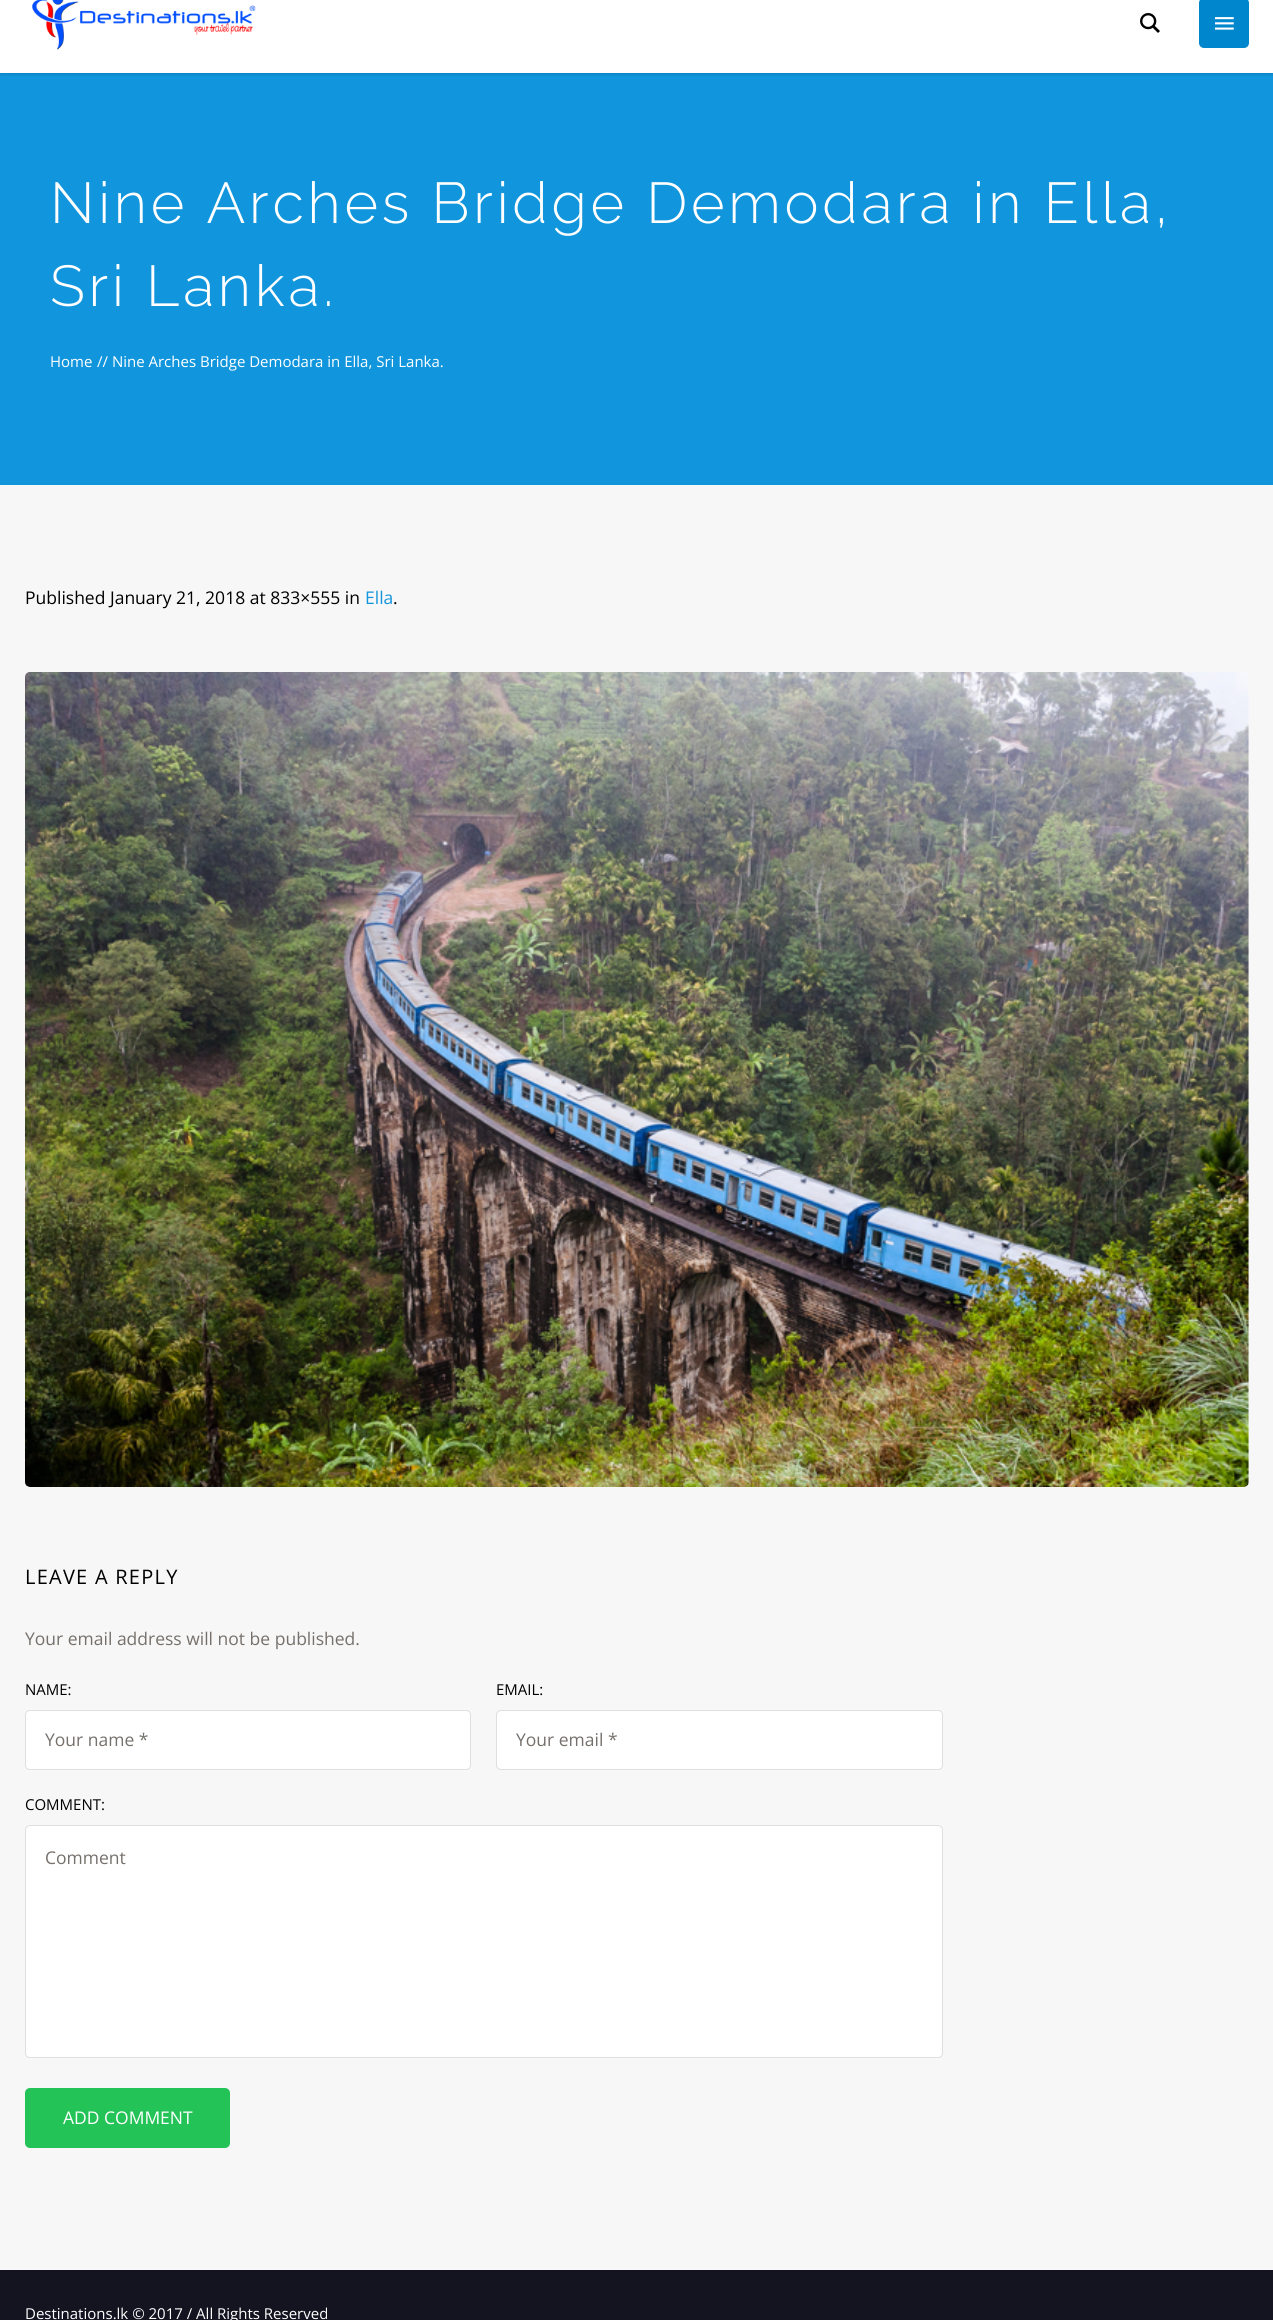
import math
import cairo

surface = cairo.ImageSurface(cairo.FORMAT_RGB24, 1273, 2320)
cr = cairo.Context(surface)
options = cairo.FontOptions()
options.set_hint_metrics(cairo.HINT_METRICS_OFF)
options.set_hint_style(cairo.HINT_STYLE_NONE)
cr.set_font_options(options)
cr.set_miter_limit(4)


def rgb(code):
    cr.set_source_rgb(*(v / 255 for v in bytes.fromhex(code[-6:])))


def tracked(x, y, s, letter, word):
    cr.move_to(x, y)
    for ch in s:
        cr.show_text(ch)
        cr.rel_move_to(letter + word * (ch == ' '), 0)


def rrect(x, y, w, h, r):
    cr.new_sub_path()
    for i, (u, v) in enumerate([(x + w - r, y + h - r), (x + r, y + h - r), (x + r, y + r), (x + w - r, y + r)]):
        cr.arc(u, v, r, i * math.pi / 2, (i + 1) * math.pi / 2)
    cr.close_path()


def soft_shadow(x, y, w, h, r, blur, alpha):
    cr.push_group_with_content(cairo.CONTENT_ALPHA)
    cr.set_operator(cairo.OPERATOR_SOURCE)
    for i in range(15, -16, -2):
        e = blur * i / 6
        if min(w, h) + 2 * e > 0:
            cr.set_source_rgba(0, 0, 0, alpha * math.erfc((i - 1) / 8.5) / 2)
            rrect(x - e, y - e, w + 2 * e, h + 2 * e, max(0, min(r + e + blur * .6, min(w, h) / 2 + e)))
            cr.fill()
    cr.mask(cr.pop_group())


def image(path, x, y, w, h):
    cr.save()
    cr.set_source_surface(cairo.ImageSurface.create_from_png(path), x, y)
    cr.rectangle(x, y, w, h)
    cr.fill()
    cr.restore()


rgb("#f7f7f7")
cr.paint()
rgb("#1196dd")
cr.rectangle(0, 73, 1273, 412)
cr.fill()
rgb("#000000")
soft_shadow(0, -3, 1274, 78, 0, 1, 0.1)
rgb("#ffffff")
cr.rectangle(0, 0, 1273, 73)
cr.fill()
image("img/1.png", 32, 0, 224, 50)
image("img/2.png", 1140, 13, 20, 20)
rgb("#0086cd")
rrect(1199, -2, 50, 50, 5)
cr.fill()
image("img/3.png", 1215, 17, 19, 13)
image("img/4.png", 25, 672, 1224, 815)
rgb("#ffffff")
rrect(25.5, 1710.5, 445, 59, 4.5)
cr.fill_preserve()
rgb("#dfdfdf")
cr.set_line_width(1)
cr.stroke()
rgb("#ffffff")
rrect(496.5, 1710.5, 446, 59, 4.5)
cr.fill_preserve()
rgb("#dfdfdf")
cr.stroke()
rgb("#ffffff")
rrect(25.5, 1825.5, 917, 232, 4.5)
cr.fill_preserve()
rgb("#dfdfdf")
cr.stroke()
rgb("#24c358")
rrect(25, 2088, 205, 60, 5)
cr.fill()
rgb("#131420")
cr.rectangle(0, 2270, 1273, 50)
cr.fill()
cr.select_font_face("Raleway Light")
cr.set_font_size(57.5)
rgb("#ffffff")
tracked(50, 223, "Nine Arches Bridge Demodara in Ella,", 3.75, 0)
tracked(50, 306, "Sri Lanka.", 3.75, 0)
cr.select_font_face("Open Sans")
cr.set_font_size(15)
cr.move_to(50, 367)
cr.show_text("Home")
cr.move_to(97, 367)
cr.show_text("// Nine Arches Bridge Demodara in Ella, Sri Lanka.")
cr.set_font_size(17.5)
rgb("#000000")
cr.move_to(25, 604)
cr.show_text("Published January 21, 2018 at 833×555 in")
rgb("#1196dd")
cr.move_to(365, 604)
cr.show_text("Ella")
rgb("#000000")
cr.move_to(393, 604)
cr.show_text(".")
cr.set_font_size(20)
tracked(25, 1584, "LEAVE A REPLY", 1.25, 0)
cr.set_font_size(17.5)
rgb("#75706b")
cr.move_to(25, 1645)
cr.show_text("Your email address will not be published.")
cr.set_font_size(15)
rgb("#000000")
cr.move_to(25, 1695)
cr.show_text("NAME:")
cr.set_font_size(17.5)
rgb("#75706b")
cr.move_to(45, 1746)
cr.show_text("Your name *")
cr.set_font_size(15)
rgb("#000000")
cr.move_to(496, 1695)
cr.show_text("EMAIL:")
cr.set_font_size(17.5)
rgb("#75706b")
cr.move_to(516, 1746)
cr.show_text("Your email *")
cr.set_font_size(15)
rgb("#000000")
cr.move_to(25, 1810)
cr.show_text("COMMENT:")
cr.set_font_size(17.5)
rgb("#75706b")
cr.move_to(45, 1864)
cr.show_text("Comment")
rgb("#ffffff")
cr.move_to(63, 2124)
cr.show_text("ADD COMMENT")
cr.set_font_size(15)
cr.move_to(25, 2319)
cr.show_text("Destinations.lk © 2017 / All Rights Reserved")
surface.write_to_png("page.png")
